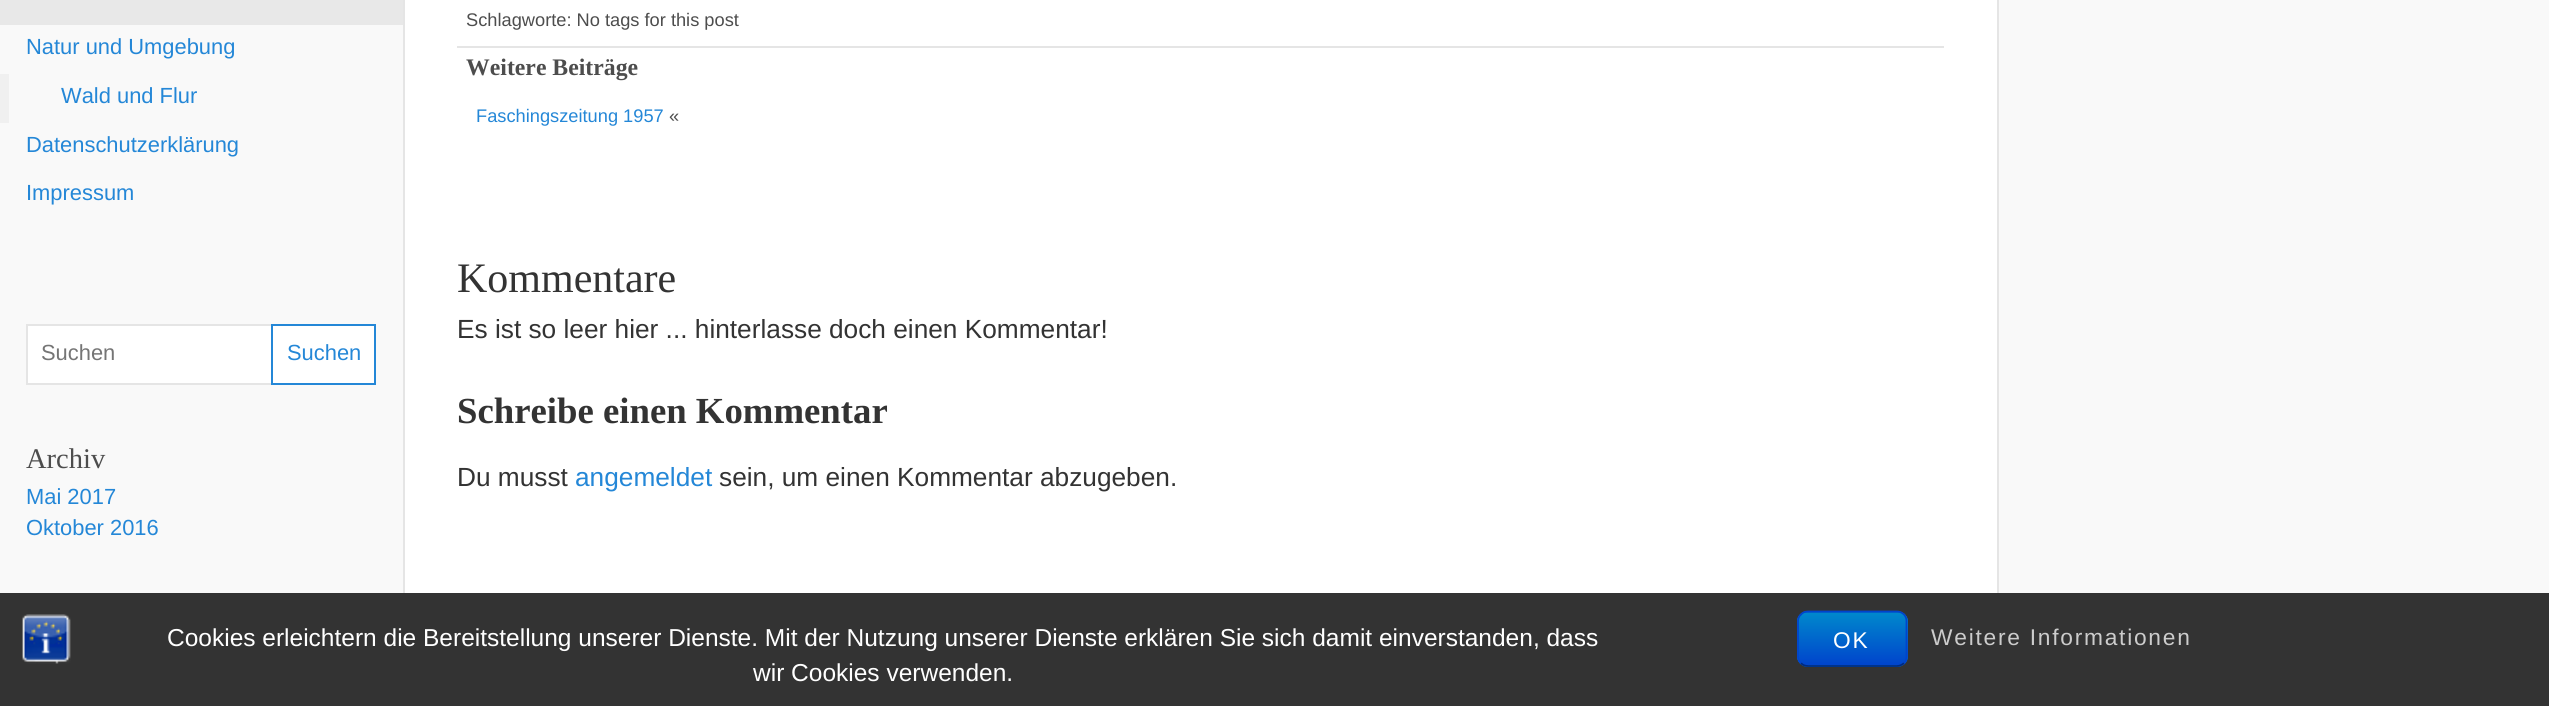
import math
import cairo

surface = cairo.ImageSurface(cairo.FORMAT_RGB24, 2549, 706)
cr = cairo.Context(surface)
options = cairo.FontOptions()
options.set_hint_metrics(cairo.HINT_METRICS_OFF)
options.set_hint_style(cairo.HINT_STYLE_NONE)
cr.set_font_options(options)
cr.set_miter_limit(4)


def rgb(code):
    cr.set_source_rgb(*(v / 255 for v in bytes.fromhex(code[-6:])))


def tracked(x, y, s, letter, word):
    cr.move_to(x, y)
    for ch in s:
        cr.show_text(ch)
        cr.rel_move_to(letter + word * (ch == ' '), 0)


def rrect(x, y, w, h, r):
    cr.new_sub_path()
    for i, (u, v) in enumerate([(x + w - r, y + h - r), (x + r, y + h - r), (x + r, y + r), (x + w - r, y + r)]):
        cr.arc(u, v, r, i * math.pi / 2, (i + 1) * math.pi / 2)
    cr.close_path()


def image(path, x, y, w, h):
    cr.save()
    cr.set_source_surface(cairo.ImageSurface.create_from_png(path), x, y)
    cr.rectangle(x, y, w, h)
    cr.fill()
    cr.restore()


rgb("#f9f9f9")
cr.paint()
for x, y, w, h, color in [
    (0, 0, 403, 25, "#e8e8e8"),
    (0, 74, 9, 49, "#f0f0f0"),
    (28, 326, 243, 57, "#ffffff"),
    (26, 324, 245, 2, "#e5e5e5"),
    (26, 383, 245, 2, "#e5e5e5"),
    (26, 324, 2, 61, "#e5e5e5"),
]:
    rgb(color)
    cr.rectangle(x, y, w, h)
    cr.fill()
rgb("#ffffff")
cr.rectangle(272, 325, 103, 59)
cr.fill_preserve()
rgb("#2487d7")
cr.stroke()
for x, y, w, h, color in [
    (405, 0, 1592, 593, "#ffffff"),
    (1997, 0, 2, 593, "#e5e5e5"),
    (403, 0, 2, 593, "#e5e5e5"),
    (457, 46, 1487, 2, "#e5e5e5"),
    (0, 593, 2549, 113, "#333333"),
]:
    rgb(color)
    cr.rectangle(x, y, w, h)
    cr.fill()
image("img/1.png", 22, 614, 49, 50)
rgb("#006dcc")
rrect(1797, 611, 111, 56, 11)
cr.fill()
cr.save()
rrect(1797, 611, 111, 56, 11)
cr.clip()
gradient = cairo.LinearGradient(1852, 613, 1852, 665)
gradient.add_color_stop_rgba(0, 0, 0.533, 0.8, 1)
gradient.add_color_stop_rgba(1, 0, 0.267, 0.8, 1)
cr.set_source(gradient)
cr.rectangle(1797, 613, 111, 52)
cr.fill()
cr.restore()
cr.new_path()
cr.move_to(1904, 663)
cr.curve_to(1902, 665, 1899.5, 666, 1897, 666)
cr.line_to(1808, 666)
cr.curve_to(1805, 666, 1802.5, 665, 1801, 663)
rgb("#002a80")
cr.set_line_width(1.8)
cr.stroke()
cr.new_path()
cr.move_to(1801, 663)
cr.curve_to(1799, 661.5, 1798, 659, 1798, 656)
cr.line_to(1798, 621)
cr.curve_to(1798, 618.5, 1799, 616, 1801, 614.5)
cr.curve_to(1802.5, 612.5, 1805, 611.5, 1808, 611.5)
cr.line_to(1897, 611.5)
cr.curve_to(1899.5, 611.5, 1902, 612.5, 1904, 614.5)
cr.curve_to(1905.5, 616, 1906.5, 618.5, 1906.5, 621)
cr.line_to(1906.5, 656)
cr.curve_to(1906.5, 659, 1905.5, 661.5, 1904, 663)
rgb("#0044cc")
cr.stroke()
cr.select_font_face("Liberation Sans")
cr.set_font_size(21.9)
rgb("#2487d7")
for x, y, s in [
    (26, 54, "Natur und Umgebung"),
    (61, 103, "Wald und Flur"),
    (26, 152, "Datenschutzerklärung"),
    (26, 200, "Impressum"),
]:
    cr.move_to(x, y)
    cr.show_text(s)
rgb("#757575")
cr.move_to(41, 360)
cr.show_text("Suchen")
rgb("#2487d7")
cr.move_to(287, 360)
cr.show_text("Suchen")
cr.select_font_face("Liberation Serif")
cr.set_font_size(28.5)
rgb("#4d4d4d")
cr.move_to(26, 468)
cr.show_text("Archiv")
cr.select_font_face("Liberation Sans")
cr.set_font_size(21.9)
rgb("#2487d7")
cr.move_to(26, 504)
cr.show_text("Mai 2017")
cr.move_to(26, 535)
cr.show_text("Oktober 2016")
cr.set_font_size(18.25)
rgb("#4d4d4d")
cr.move_to(466, 26)
cr.show_text("Schlagworte: No tags for this post")
cr.select_font_face("Liberation Serif", cairo.FONT_SLANT_NORMAL, cairo.FONT_WEIGHT_BOLD)
cr.set_font_size(23.75)
cr.move_to(466, 75)
cr.show_text("Weitere Beiträge")
cr.select_font_face("Liberation Sans")
cr.set_font_size(18.25)
rgb("#2487d7")
cr.move_to(476, 122)
cr.show_text("Faschingszeitung 1957")
rgb("#4d4d4d")
cr.move_to(669, 122)
cr.show_text("«")
cr.select_font_face("Liberation Serif")
cr.set_font_size(42)
rgb("#333333")
cr.move_to(457, 292)
cr.show_text("Kommentare")
cr.select_font_face("Liberation Sans")
cr.set_font_size(26.25)
cr.move_to(457, 338)
cr.show_text("Es ist so leer hier ... hinterlasse doch einen Kommentar!")
cr.select_font_face("Liberation Serif", cairo.FONT_SLANT_NORMAL, cairo.FONT_WEIGHT_BOLD)
cr.set_font_size(36.75)
cr.move_to(457, 423)
cr.show_text("Schreibe einen Kommentar")
cr.select_font_face("Liberation Sans")
cr.set_font_size(26.25)
cr.move_to(457, 486)
cr.show_text("Du musst")
rgb("#2487d7")
cr.move_to(575, 486)
cr.show_text("angemeldet")
rgb("#333333")
cr.move_to(719, 486)
cr.show_text("sein, um einen Kommentar abzugeben.")
cr.set_font_size(24.5)
rgb("#ffffff")
cr.move_to(167, 646)
cr.show_text("Cookies erleichtern die Bereitstellung unserer Dienste. Mit der Nutzung unserer Dienste erklären Sie sich damit einverstanden, dass")
cr.move_to(753, 681)
cr.show_text("wir Cookies verwenden.")
cr.set_font_size(22.75)
tracked(1833, 648, "OK", 1.75, 0)
rgb("#cccccc")
tracked(1931, 645, "Weitere Informationen", 1.75, 0)
surface.write_to_png("page.png")
